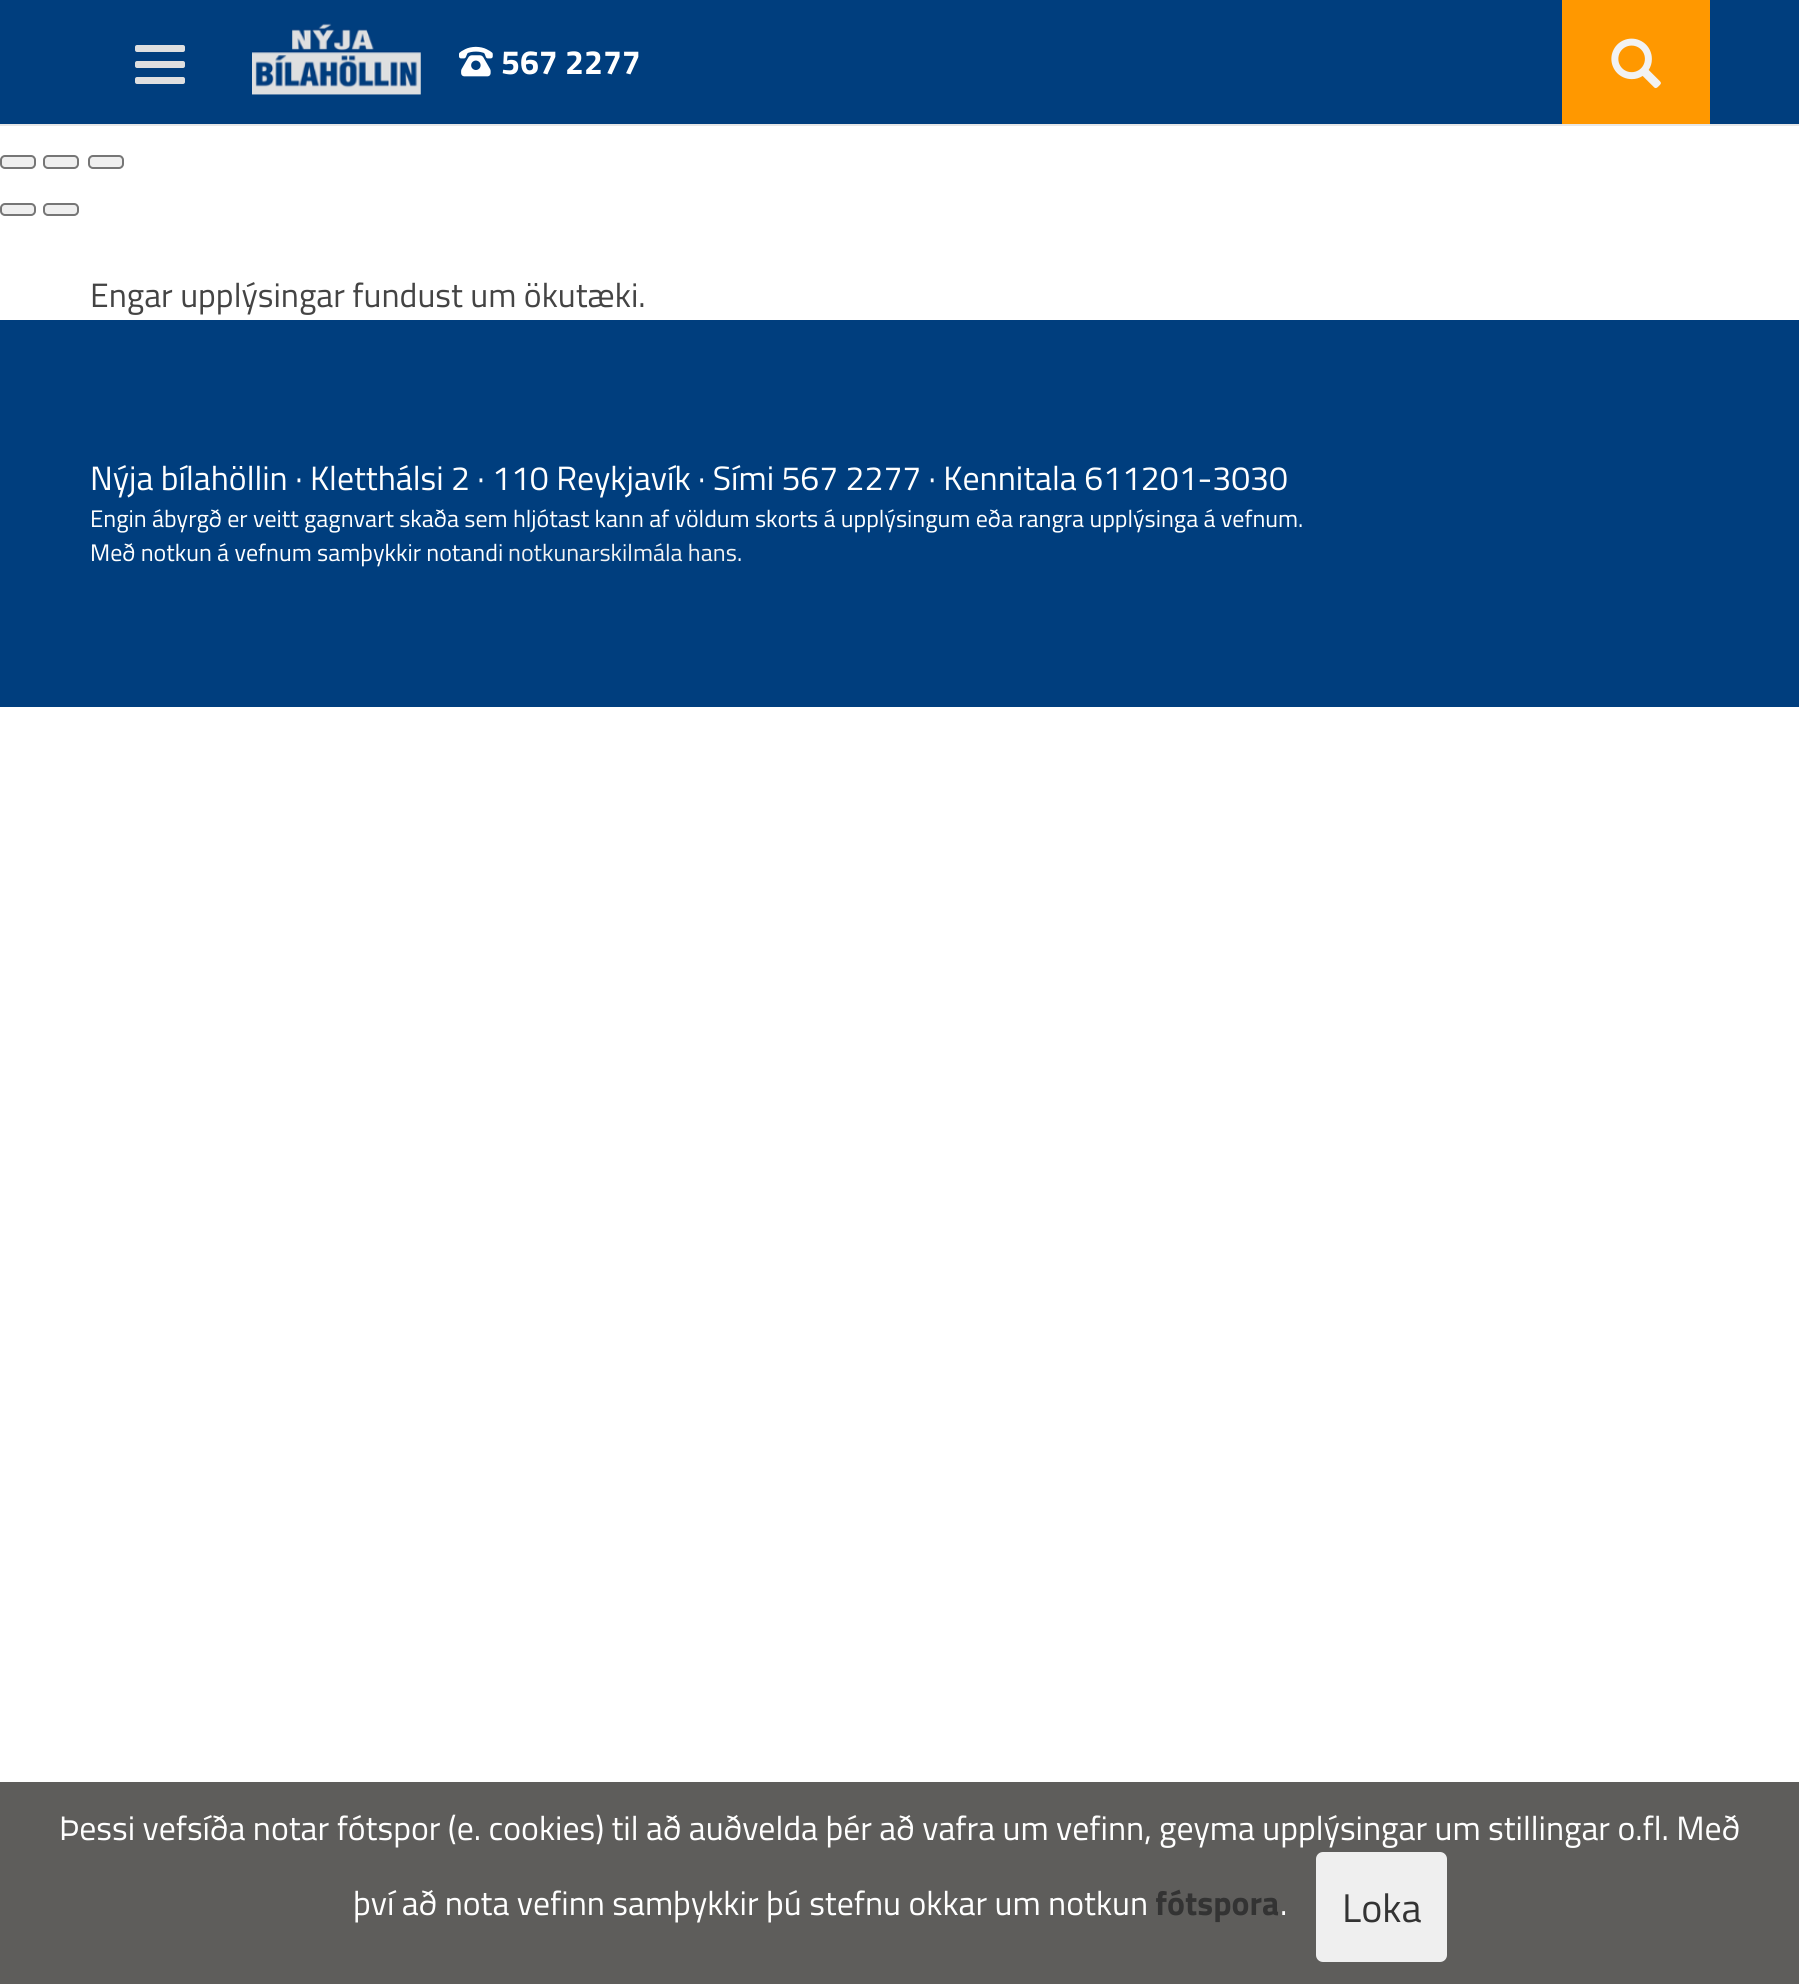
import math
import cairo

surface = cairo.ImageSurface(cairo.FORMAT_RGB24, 1799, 1984)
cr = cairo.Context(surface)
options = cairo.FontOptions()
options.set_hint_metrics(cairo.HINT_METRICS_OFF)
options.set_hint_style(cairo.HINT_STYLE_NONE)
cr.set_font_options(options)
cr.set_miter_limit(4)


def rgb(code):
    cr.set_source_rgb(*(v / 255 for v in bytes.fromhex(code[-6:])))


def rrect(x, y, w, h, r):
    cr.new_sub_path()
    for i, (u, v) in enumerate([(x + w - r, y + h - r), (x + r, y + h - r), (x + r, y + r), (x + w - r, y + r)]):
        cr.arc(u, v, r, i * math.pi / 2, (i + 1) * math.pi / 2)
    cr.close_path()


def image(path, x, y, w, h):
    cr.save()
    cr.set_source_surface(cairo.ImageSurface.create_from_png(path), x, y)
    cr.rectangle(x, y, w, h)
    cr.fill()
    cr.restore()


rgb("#ffffff")
cr.paint()
rgb("#003e7e")
cr.rectangle(0, 0, 1799, 124)
cr.fill()
rgb("#e7e7e7")
cr.rectangle(0, 124, 1799, 2)
cr.fill()
rgb("#dedfe0")
rrect(135, 45, 50, 7, 2)
cr.fill()
rrect(135, 61, 50, 7, 2)
cr.fill()
rrect(135, 77, 50, 7, 2)
cr.fill()
image("img/1.png", 252, 23, 169, 72)
image("img/2.png", 459, 46, 34, 31)
rgb("#ff9800")
cr.rectangle(1562, 0, 148, 124)
cr.fill()
image("img/3.png", 1611, 38, 50, 51)
rgb("#efefef")
rrect(1, 156, 34, 12, 4)
cr.fill_preserve()
rgb("#767676")
cr.stroke()
rgb("#efefef")
rrect(44, 156, 34, 12, 4)
cr.fill_preserve()
rgb("#767676")
cr.stroke()
rgb("#efefef")
rrect(89, 156, 34, 12, 4)
cr.fill_preserve()
rgb("#767676")
cr.stroke()
rgb("#efefef")
rrect(1, 204, 34, 11, 4)
cr.fill_preserve()
rgb("#767676")
cr.stroke()
rgb("#efefef")
rrect(44, 204, 34, 11, 4)
cr.fill_preserve()
rgb("#767676")
cr.stroke()
rgb("#003e7e")
cr.rectangle(0, 320, 1799, 387)
cr.fill()
rgb("#5e5d5b")
cr.rectangle(0, 1782, 1799, 202)
cr.fill()
rgb("#efefef")
rrect(1316, 1852, 131, 110, 7)
cr.fill()
cr.select_font_face("Titillium Web", cairo.FONT_SLANT_NORMAL, cairo.FONT_WEIGHT_BOLD)
cr.set_font_size(33.75)
rgb("#ffffff")
cr.move_to(501, 74)
cr.show_text("567 2277")
cr.select_font_face("Titillium Web")
rgb("#444444")
cr.move_to(90, 307)
cr.show_text("Engar upplýsingar fundust um ökutæki.")
rgb("#ffffff")
cr.move_to(90, 490)
cr.show_text("Nýja bílahöllin · Kletthálsi 2 · 110 Reykjavík · Sími 567 2277 · Kennitala 611201-3030")
cr.set_font_size(24)
cr.move_to(90, 527)
cr.show_text("Engin ábyrgð er veitt gagnvart skaða sem hljótast kann af völdum skorts á upplýsingum eða rangra upplýsinga á vefnum.")
cr.move_to(90, 561)
cr.show_text("Með notkun á vefnum samþykkir notandi")
rgb("#f2f2f2")
cr.move_to(508, 561)
cr.show_text("notkunarskilmála hans")
rgb("#ffffff")
cr.move_to(737, 561)
cr.show_text(".")
cr.set_font_size(33.75)
cr.move_to(59, 1840)
cr.show_text("Þessi vefsíða notar fótspor (e. cookies) til að auðvelda þér að vafra um vefinn, geyma upplýsingar um stillingar o.fl. Með")
cr.move_to(353, 1915)
cr.show_text("því að nota vefinn samþykkir þú stefnu okkar um notkun")
cr.select_font_face("Titillium Web", cairo.FONT_SLANT_NORMAL, cairo.FONT_WEIGHT_BOLD)
rgb("#333333")
cr.move_to(1155, 1915)
cr.show_text("fótspora")
cr.select_font_face("Titillium Web")
rgb("#ffffff")
cr.move_to(1280, 1915)
cr.show_text(".")
cr.set_font_size(40)
rgb("#333333")
cr.move_to(1342, 1922)
cr.show_text("Loka")
surface.write_to_png("page.png")
